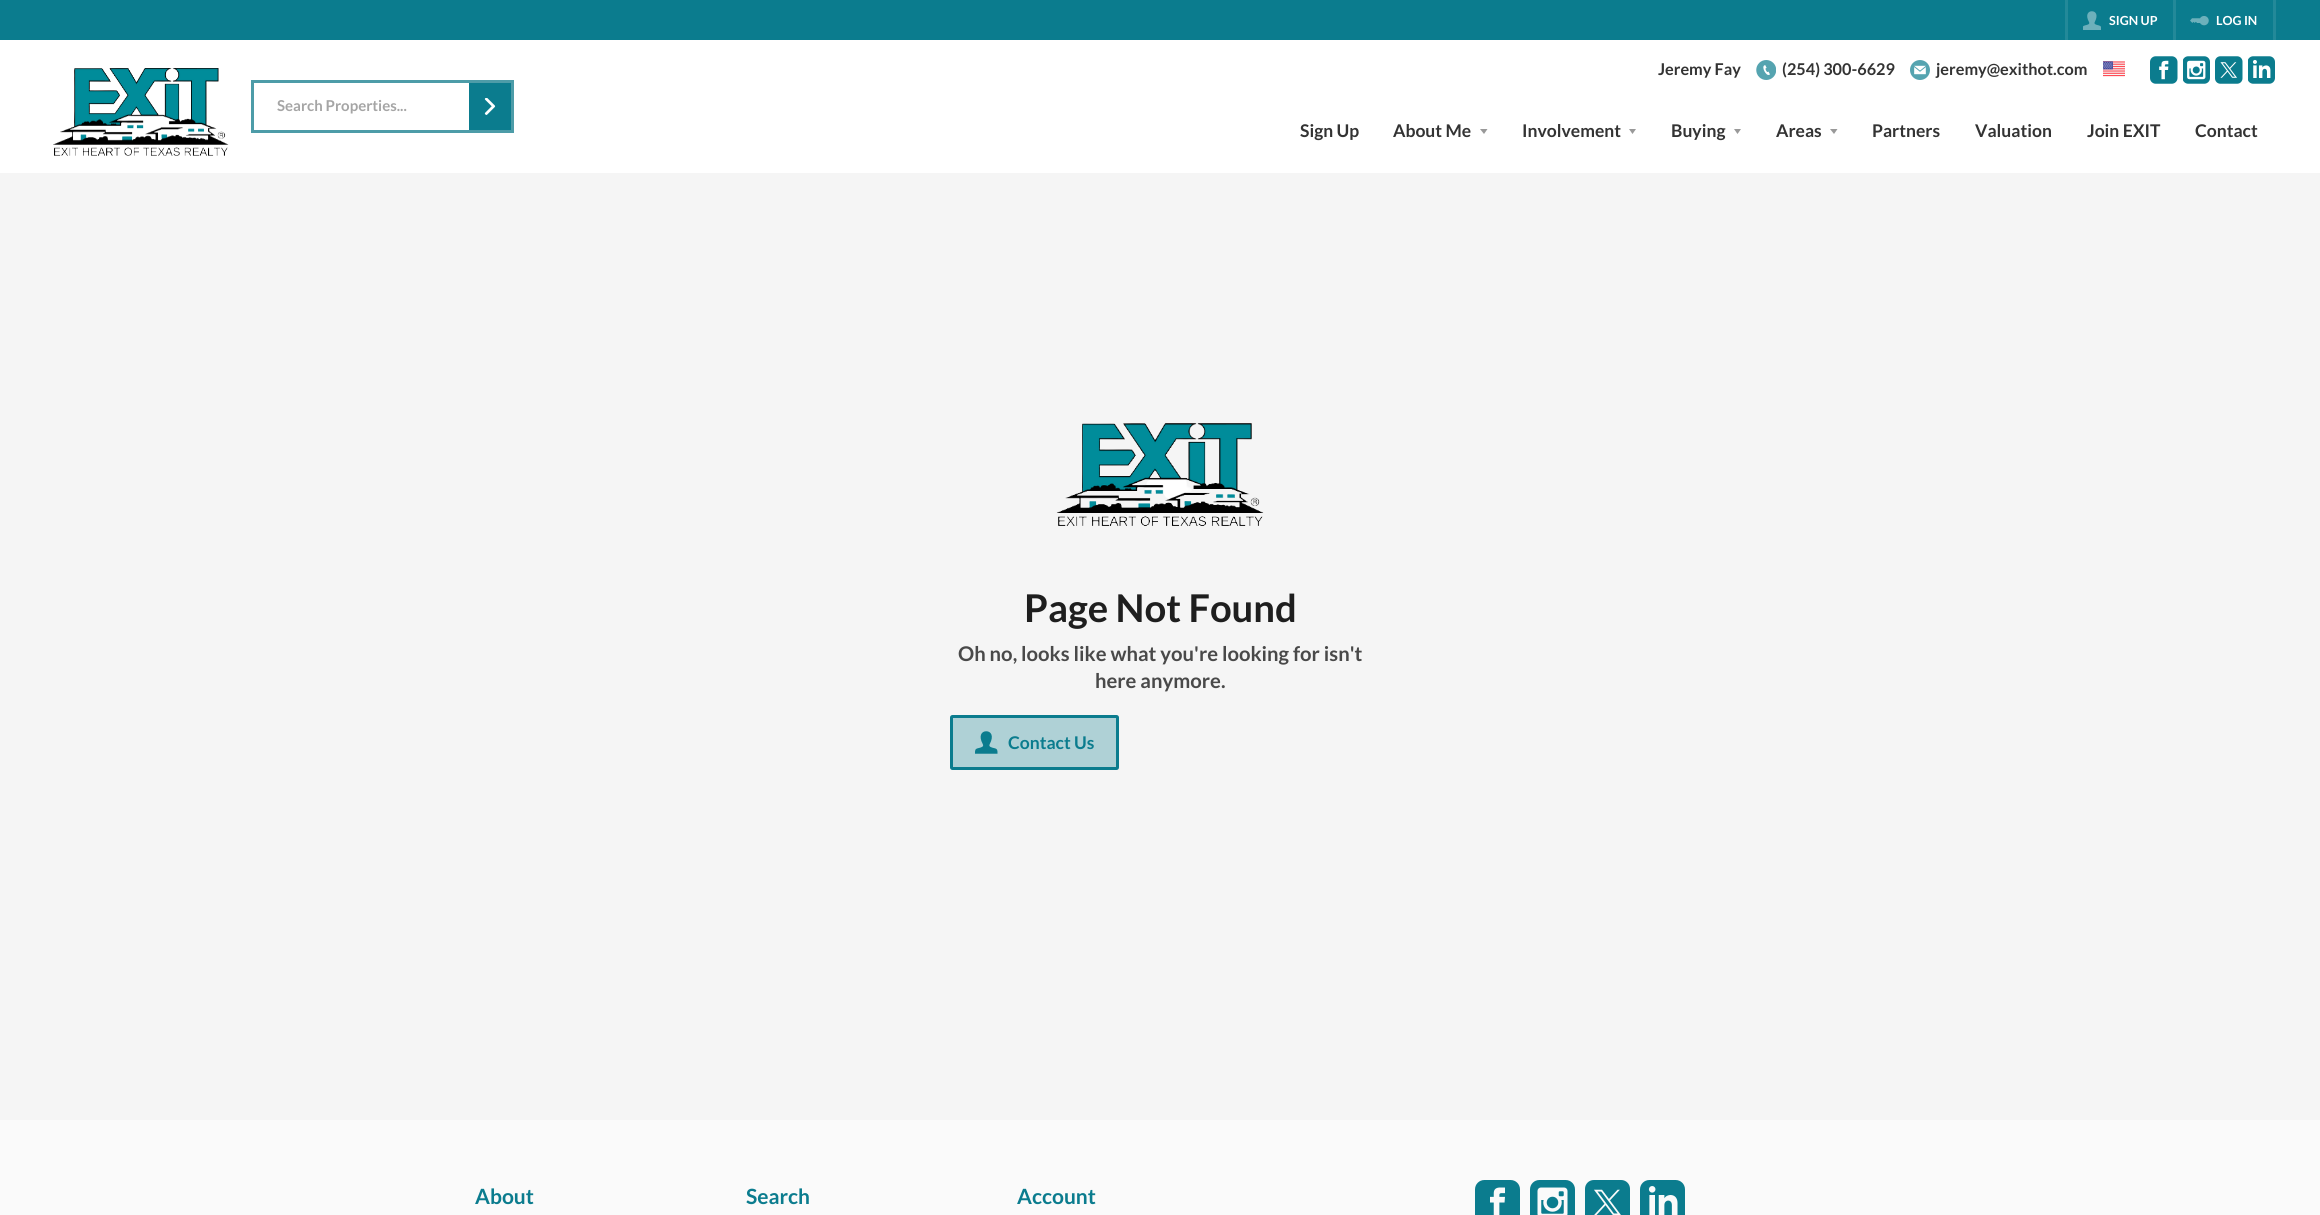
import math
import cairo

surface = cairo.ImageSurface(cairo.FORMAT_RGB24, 2320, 1215)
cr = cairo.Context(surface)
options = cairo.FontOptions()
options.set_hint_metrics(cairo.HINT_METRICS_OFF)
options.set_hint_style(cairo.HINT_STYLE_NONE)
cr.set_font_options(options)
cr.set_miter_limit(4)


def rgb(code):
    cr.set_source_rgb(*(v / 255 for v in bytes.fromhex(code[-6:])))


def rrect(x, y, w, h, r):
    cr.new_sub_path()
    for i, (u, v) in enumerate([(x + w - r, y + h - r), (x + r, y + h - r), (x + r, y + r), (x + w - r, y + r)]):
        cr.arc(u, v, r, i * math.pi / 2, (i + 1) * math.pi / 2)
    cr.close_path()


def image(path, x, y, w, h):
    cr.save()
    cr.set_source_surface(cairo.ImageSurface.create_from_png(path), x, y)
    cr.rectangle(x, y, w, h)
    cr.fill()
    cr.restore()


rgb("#fafafa")
cr.paint()
for x, y, w, h, color in [
    (0, 0, 2320, 40, "#0b7c8e"),
    (2273, 0, 3, 40, "#238999"),
    (2065, 0, 3, 40, "#238999"),
]:
    rgb(color)
    cr.rectangle(x, y, w, h)
    cr.fill()
image("img/1.png", 2083, 11, 18, 19)
cr.rectangle(2173, 0, 3, 40)
cr.fill()
image("img/2.png", 2190, 16, 19, 10)
rgb("#ffffff")
cr.rectangle(0, 40, 2320, 133)
cr.fill()
image("img/3.png", 53, 68, 176, 88)
cr.rectangle(252.5, 81.5, 260, 50)
rgb("#4d9ca8")
cr.set_line_width(3)
cr.stroke()
rgb("#0b7c8e")
cr.rectangle(469, 83, 42, 47)
cr.fill()
image("img/4.png", 484, 98, 12, 17)
image("img/5.png", 1756, 60, 20, 20)
image("img/6.png", 1910, 60, 20, 20)
image("img/7.png", 2103, 61, 22, 16)
image("img/8.png", 2150, 56, 28, 28)
image("img/9.png", 2183, 56, 27, 28)
image("img/10.png", 2215, 56, 28, 28)
image("img/11.png", 2248, 56, 27, 28)
rgb("#999999")
cr.new_path()
cr.move_to(1480, 129)
cr.line_to(1487.5, 129)
cr.line_to(1484, 134)
cr.close_path()
cr.fill()
cr.new_path()
cr.move_to(1629, 129)
cr.line_to(1636, 129)
cr.line_to(1632.5, 134)
cr.close_path()
cr.fill()
cr.new_path()
cr.move_to(1734, 129)
cr.line_to(1741, 129)
cr.line_to(1737.5, 134)
cr.close_path()
cr.fill()
cr.new_path()
cr.move_to(1830, 129)
cr.line_to(1837.5, 129)
cr.line_to(1834, 134)
cr.close_path()
cr.fill()
rgb("#f5f5f5")
cr.rectangle(0, 173, 2320, 947)
cr.fill()
image("img/12.png", 1056, 423, 208, 103)
rgb("#afd1d6")
rrect(951.5, 716.5, 166, 52, 1)
cr.fill_preserve()
rgb("#0b7c8e")
cr.stroke()
image("img/13.png", 975, 731, 23, 23)
image("img/14.png", 1475, 1180, 45, 35)
image("img/15.png", 1530, 1180, 45, 35)
image("img/16.png", 1585, 1180, 45, 35)
image("img/17.png", 1640, 1180, 45, 35)
cr.select_font_face("Lato", cairo.FONT_SLANT_NORMAL, cairo.FONT_WEIGHT_BOLD)
cr.set_font_size(12.5)
rgb("#ffffff")
cr.move_to(2109, 25)
cr.show_text("SIGN UP")
cr.move_to(2216, 25)
cr.show_text("LOG IN")
cr.set_font_size(15)
rgb("#a5a5a5")
cr.move_to(277, 111)
cr.show_text("Search Properties...")
cr.set_font_size(16.25)
rgb("#333333")
for x, y, s in [
    (1658, 75, "Jeremy Fay"),
    (1782, 75, "(254) 300-6629"),
    (1936, 75, "jeremy@exithot.com"),
]:
    cr.move_to(x, y)
    cr.show_text(s)
cr.set_font_size(17.5)
for x, y, s in [
    (1300, 137, "Sign Up"),
    (1393, 137, "About Me"),
    (1522, 137, "Involvement"),
    (1671, 137, "Buying"),
    (1776, 137, "Areas"),
    (1872, 137, "Partners"),
    (1975, 137, "Valuation"),
    (2087, 137, "Join EXIT"),
    (2195, 137, "Contact"),
]:
    cr.move_to(x, y)
    cr.show_text(s)
cr.set_font_size(38.25)
rgb("#1e1e1e")
cr.move_to(1024, 622)
cr.show_text("Page Not Found")
cr.set_font_size(20.25)
rgb("#494949")
cr.move_to(958, 661)
cr.show_text("Oh no, looks like what you're looking for isn't")
cr.move_to(1095, 688)
cr.show_text("here anymore.")
cr.set_font_size(17.5)
rgb("#0b7c8e")
cr.move_to(1008, 749)
cr.show_text("Contact Us")
cr.set_font_size(21)
for x, y, s in [
    (475, 1204, "About"),
    (746, 1204, "Search"),
    (1017, 1204, "Account"),
]:
    cr.move_to(x, y)
    cr.show_text(s)
surface.write_to_png("page.png")
